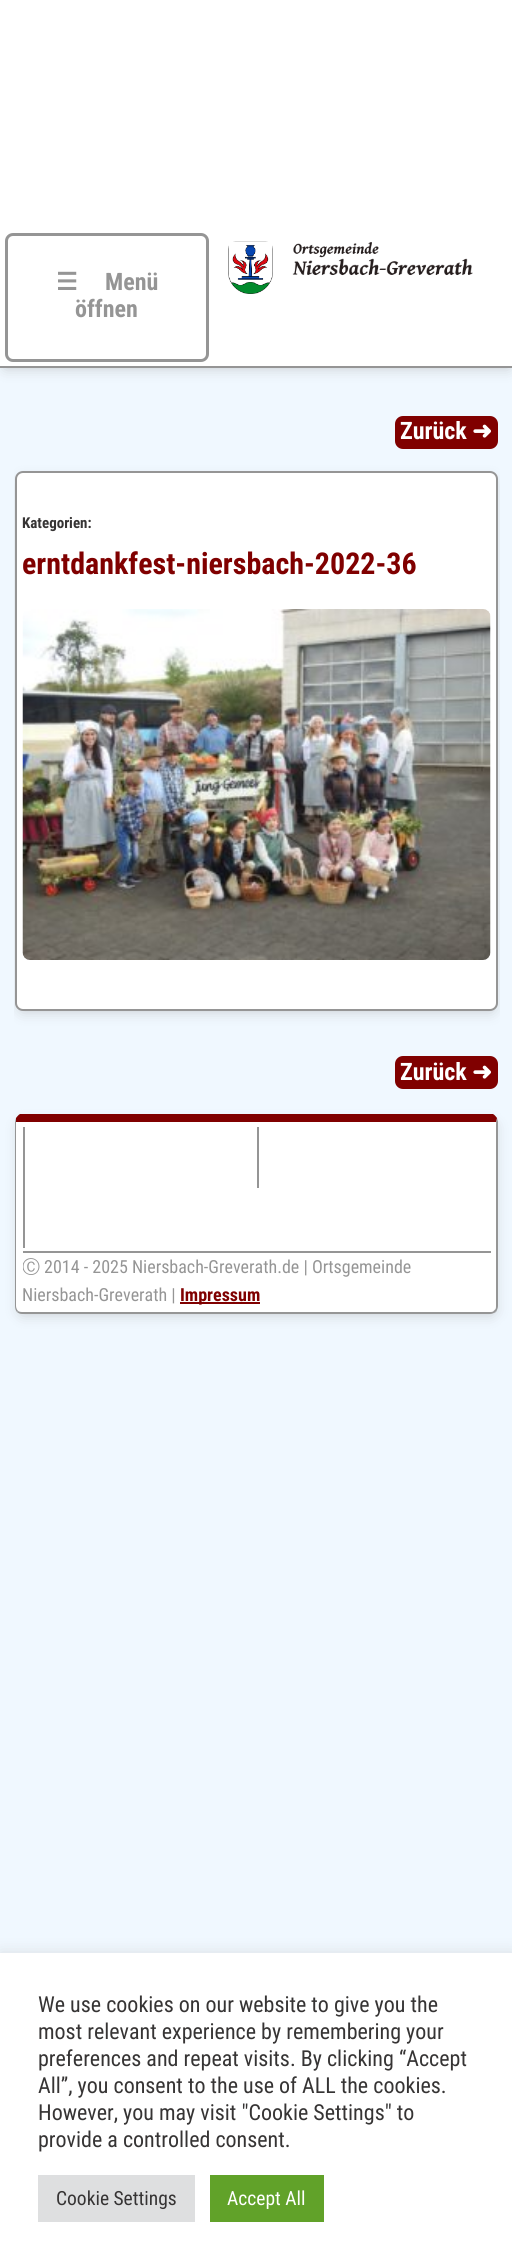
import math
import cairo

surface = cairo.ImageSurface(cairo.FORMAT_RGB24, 512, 2266)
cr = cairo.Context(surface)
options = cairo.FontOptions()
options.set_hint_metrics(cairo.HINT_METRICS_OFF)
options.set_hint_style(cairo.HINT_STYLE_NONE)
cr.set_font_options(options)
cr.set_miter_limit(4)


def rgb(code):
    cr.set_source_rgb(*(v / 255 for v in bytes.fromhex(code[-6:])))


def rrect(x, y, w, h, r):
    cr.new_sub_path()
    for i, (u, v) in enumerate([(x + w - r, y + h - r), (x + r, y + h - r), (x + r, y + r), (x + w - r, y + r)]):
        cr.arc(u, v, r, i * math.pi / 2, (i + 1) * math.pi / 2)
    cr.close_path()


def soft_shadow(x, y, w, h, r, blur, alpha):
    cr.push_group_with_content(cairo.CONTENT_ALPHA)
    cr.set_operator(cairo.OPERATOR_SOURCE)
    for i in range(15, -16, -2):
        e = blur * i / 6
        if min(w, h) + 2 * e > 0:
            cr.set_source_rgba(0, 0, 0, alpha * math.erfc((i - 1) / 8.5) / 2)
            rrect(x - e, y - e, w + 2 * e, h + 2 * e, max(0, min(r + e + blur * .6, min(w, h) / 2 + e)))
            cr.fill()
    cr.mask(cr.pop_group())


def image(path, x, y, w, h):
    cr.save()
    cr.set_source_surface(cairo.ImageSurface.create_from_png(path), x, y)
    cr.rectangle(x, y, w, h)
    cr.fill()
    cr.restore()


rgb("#f0f8ff")
cr.paint()
rgb("#959595")
soft_shadow(5, 9, 504, 359, 0, 7, 0.47)
rgb("#ffffff")
cr.rectangle(0, 0, 512, 366)
cr.fill()
rgb("#959595")
cr.rectangle(0, 366, 512, 2)
cr.fill()
rrect(6.5, 234.5, 201, 126, 6.5)
cr.set_line_width(3)
cr.stroke()
image("img/1.png", 228, 241, 45, 53)
image("img/2.png", 292, 242, 181, 34)
rgb("#800000")
rrect(395, 416, 103, 33, 8)
cr.fill()
cr.save()
cr.rectangle(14, 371, 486, 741)
cr.clip()
rgb("#959595")
soft_shadow(20, 480, 474, 531, 3, 7, 0.47)
cr.restore()
rgb("#ffffff")
rrect(16, 472, 481, 538, 7)
cr.fill_preserve()
rgb("#959595")
cr.set_line_width(2)
cr.stroke()
image("img/3.png", 22, 609, 469, 351)
rgb("#800000")
rrect(395, 1056, 103, 33, 8)
cr.fill()
rgb("#959595")
soft_shadow(20, 1124, 474, 190, 3, 7, 0.47)
rgb("#ffffff")
cr.new_path()
cr.move_to(22, 1122)
cr.line_to(496, 1122)
cr.line_to(496, 1306)
cr.curve_to(496, 1310, 494, 1312, 490, 1312)
cr.line_to(22, 1312)
cr.curve_to(19, 1312, 16, 1310, 16, 1306)
cr.line_to(16, 1122)
cr.close_path()
cr.fill()
rgb("#800000")
cr.new_path()
cr.move_to(16, 1118)
cr.curve_to(17, 1117, 18, 1115, 20, 1114)
cr.line_to(493, 1114)
cr.curve_to(495, 1115, 496, 1117, 497, 1118)
cr.line_to(496, 1124)
cr.line_to(496, 1122)
cr.line_to(16, 1122)
cr.close_path()
cr.fill()
rgb("#959595")
cr.new_path()
cr.move_to(498, 1306)
cr.line_to(498, 1122)
cr.line_to(497, 1118)
cr.line_to(496, 1124)
cr.line_to(496, 1306)
cr.curve_to(496, 1308, 496, 1310, 494, 1310)
cr.line_to(496, 1312)
cr.curve_to(497, 1310, 498, 1308, 498, 1306)
cr.close_path()
cr.fill()
cr.new_path()
cr.move_to(22, 1314)
cr.line_to(490, 1314)
cr.curve_to(492, 1314, 494, 1313, 496, 1312)
cr.line_to(494, 1310)
cr.curve_to(494, 1312, 492, 1312, 490, 1312)
cr.line_to(22, 1312)
cr.curve_to(21, 1312, 19, 1312, 18, 1311)
cr.line_to(17, 1312)
cr.curve_to(18, 1313, 20, 1314, 22, 1314)
cr.close_path()
cr.fill()
cr.new_path()
cr.move_to(15, 1122)
cr.line_to(15, 1306)
cr.curve_to(15, 1309, 16, 1311, 17, 1312)
cr.line_to(18, 1311)
cr.curve_to(17, 1310, 16, 1308, 16, 1306)
cr.line_to(16, 1122)
cr.line_to(16, 1118)
cr.close_path()
cr.fill()
for x, y, w, h, color in [
    (23, 1251, 468, 2, "#959595"),
    (23, 1127, 2, 121, "#959595"),
    (257, 1127, 2, 61, "#959595"),
    (180, 1302, 80, 2, "#800000"),
]:
    rgb(color)
    cr.rectangle(x, y, w, h)
    cr.fill()
rgb("#acabab")
soft_shadow(0, 1952, 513, 313, 0, 7.5, 0.3)
for x, y, w, h, color in [
    (0, 1953, 512, 313, "#ffffff"),
    (38, 2175, 157, 47, "#dedfe0"),
    (210, 2175, 114, 47, "#61a229"),
]:
    rgb(color)
    cr.rectangle(x, y, w, h)
    cr.fill()
cr.select_font_face("DejaVu Sans", cairo.FONT_SLANT_NORMAL, cairo.FONT_WEIGHT_BOLD)
cr.set_font_size(24)
rgb("#959595")
cr.move_to(56, 290)
cr.show_text("☰")
cr.select_font_face("Roboto Condensed", cairo.FONT_SLANT_NORMAL, cairo.FONT_WEIGHT_BOLD)
cr.move_to(105, 290)
cr.show_text("Menü")
cr.move_to(75, 317)
cr.show_text("öffnen")
rgb("#ffffff")
cr.move_to(400, 439)
cr.show_text("Zurück")
cr.select_font_face("DejaVu Sans", cairo.FONT_SLANT_NORMAL, cairo.FONT_WEIGHT_BOLD)
cr.move_to(472, 439)
cr.show_text("➜")
cr.select_font_face("Roboto Condensed", cairo.FONT_SLANT_NORMAL, cairo.FONT_WEIGHT_BOLD)
cr.set_font_size(15)
rgb("#363434")
cr.move_to(22, 528)
cr.show_text("Kategorien:")
cr.set_font_size(30)
rgb("#800000")
cr.move_to(22, 574)
cr.show_text("erntdankfest-niersbach-2022-36")
cr.set_font_size(24)
rgb("#ffffff")
cr.move_to(400, 1080)
cr.show_text("Zurück")
cr.select_font_face("DejaVu Sans", cairo.FONT_SLANT_NORMAL, cairo.FONT_WEIGHT_BOLD)
cr.move_to(472, 1080)
cr.show_text("➜")
cr.save()
cr.rectangle(23, 1253, 468, 55)
cr.clip()
cr.select_font_face("WenQuanYi Zen Hei Medium")
cr.set_font_size(18)
rgb("#959595")
cr.move_to(22, 1273)
cr.show_text("Ⓒ")
cr.restore()
cr.select_font_face("Roboto Condensed")
cr.set_font_size(18)
rgb("#959595")
cr.move_to(44, 1273)
cr.show_text("2014 - 2025 Niersbach-Greverath.de | Ortsgemeinde")
cr.move_to(22, 1301)
cr.show_text("Niersbach-Greverath |")
cr.select_font_face("Roboto Condensed", cairo.FONT_SLANT_NORMAL, cairo.FONT_WEIGHT_BOLD)
rgb("#800000")
cr.move_to(180, 1301)
cr.show_text("Impressum")
cr.select_font_face("Roboto Condensed")
cr.set_font_size(22)
rgb("#363434")
for x, y, s in [
    (38, 2012, "We use cookies on our website to give you the"),
    (38, 2039, "most relevant experience by remembering your"),
    (38, 2066, "preferences and repeat visits. By clicking “Accept"),
    (38, 2093, "All”, you consent to the use of ALL the cookies."),
    (38, 2120, "However, you may visit \"Cookie Settings\" to"),
    (38, 2147, "provide a controlled consent."),
]:
    cr.move_to(x, y)
    cr.show_text(s)
cr.set_font_size(19.5)
cr.move_to(56, 2205)
cr.show_text("Cookie Settings")
rgb("#ffffff")
cr.move_to(227, 2205)
cr.show_text("Accept All")
surface.write_to_png("page.png")
